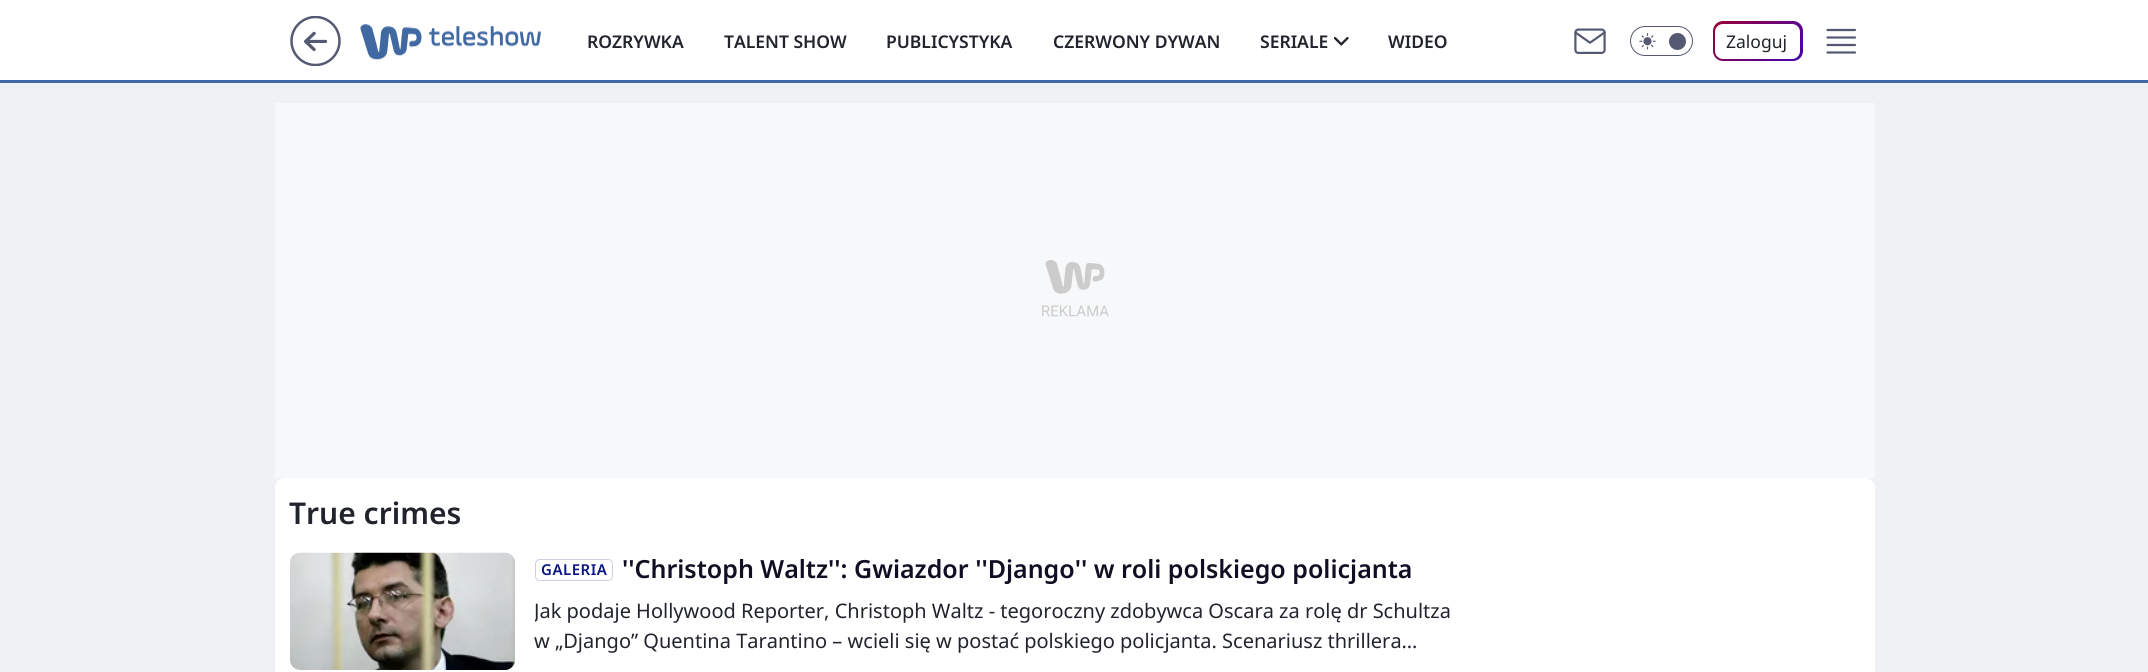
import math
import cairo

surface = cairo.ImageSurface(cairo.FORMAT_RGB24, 2148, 672)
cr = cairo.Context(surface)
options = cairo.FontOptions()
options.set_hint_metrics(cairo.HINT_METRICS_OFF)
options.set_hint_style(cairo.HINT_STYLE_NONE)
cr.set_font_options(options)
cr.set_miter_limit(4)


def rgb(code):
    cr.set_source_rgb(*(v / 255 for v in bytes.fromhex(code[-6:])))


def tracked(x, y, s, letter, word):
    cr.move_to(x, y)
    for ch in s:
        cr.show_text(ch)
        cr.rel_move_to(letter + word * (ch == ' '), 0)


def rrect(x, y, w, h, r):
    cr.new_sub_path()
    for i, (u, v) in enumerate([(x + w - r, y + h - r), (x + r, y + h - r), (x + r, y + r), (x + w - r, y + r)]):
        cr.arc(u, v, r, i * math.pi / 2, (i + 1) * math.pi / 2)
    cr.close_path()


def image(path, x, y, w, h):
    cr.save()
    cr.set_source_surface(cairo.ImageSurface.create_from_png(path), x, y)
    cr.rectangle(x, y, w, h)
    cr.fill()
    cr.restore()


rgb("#eff1f5")
cr.paint()
rgb("#ffffff")
cr.rectangle(0, 0, 2148, 80)
cr.fill()
image("img/1.png", 290, 16, 51, 50)
image("img/2.png", 360, 24, 181, 36)
image("img/3.png", 1334, 36, 15, 10)
image("img/4.png", 1574, 28, 32, 26)
rrect(1630.5, 26.5, 62, 29, 14.5)
rgb("#555a72")
cr.set_line_width(1)
cr.stroke()
image("img/5.png", 1639, 33, 17, 17)
cr.arc(1677.5, 41.5, 8.5, 0, 2 * math.pi)
cr.fill()
gradient = cairo.LinearGradient(1725, 9, 1790, 74)
gradient.add_color_stop_rgba(0, 0.608, 0.008, 0.22, 1)
gradient.add_color_stop_rgba(1, 0.267, 0.016, 0.682, 1)
cr.set_source(gradient)
rrect(1713, 21, 90, 40, 10)
cr.fill()
rgb("#ffffff")
rrect(1715, 24, 85, 35, 8)
cr.fill()
cr.new_path()
cr.move_to(1827.5, 45)
cr.line_to(1855, 45)
cr.move_to(1827.5, 37.5)
cr.line_to(1855, 37.5)
cr.move_to(1827.5, 30)
cr.line_to(1855, 30)
cr.move_to(1827.5, 52.5)
cr.line_to(1855, 52.5)
rgb("#555a72")
cr.set_line_width(2.2)
cr.set_line_cap(cairo.LINE_CAP_ROUND)
cr.set_line_join(cairo.LINE_JOIN_ROUND)
cr.stroke()
rgb("#4069a2")
cr.rectangle(0, 80, 2148, 3)
cr.fill()
rgb("#f7f8fa")
cr.rectangle(275, 103, 1600, 375)
cr.fill()
image("img/6.png", 1042, 260, 67, 57)
rgb("#ffffff")
rrect(275, 478, 1600, 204, 10)
cr.fill()
rgb("#efefef")
rrect(290, 553, 225, 117, 10)
cr.fill()
image("img/7.png", 290, 552, 225, 118)
rrect(535.5, 559.5, 77, 21, 4.5)
rgb("#ccd1dd")
cr.set_line_width(1)
cr.set_line_cap(cairo.LINE_CAP_BUTT)
cr.set_line_join(cairo.LINE_JOIN_MITER)
cr.stroke()
cr.select_font_face("Noto Sans SemiBold")
cr.set_font_size(17.5)
rgb("#22242d")
for x, y, s in [
    (587, 48, "ROZRYWKA"),
    (724, 48, "TALENT SHOW"),
    (886, 48, "PUBLICYSTYKA"),
    (1053, 48, "CZERWONY DYWAN"),
    (1260, 48, "SERIALE"),
    (1388, 48, "WIDEO"),
]:
    cr.move_to(x, y)
    cr.show_text(s)
cr.select_font_face("Noto Sans")
cr.move_to(1726, 48)
cr.show_text("Zaloguj")
cr.select_font_face("Noto Sans SemiBold")
cr.set_font_size(30)
cr.move_to(289, 524)
cr.show_text("True crimes")
cr.set_font_size(15)
rgb("#091585")
tracked(541, 575, "GALERIA", 0.5, 0)
cr.set_font_size(25)
rgb("#110e23")
cr.move_to(622, 578)
cr.show_text("''Christoph Waltz'': Gwiazdor ''Django'' w roli polskiego policjanta")
cr.save()
cr.rectangle(535, 595, 925, 60)
cr.clip()
cr.select_font_face("Noto Sans")
cr.set_font_size(20)
rgb("#22242d")
cr.move_to(534, 618)
cr.show_text("Jak podaje Hollywood Reporter, Christoph Waltz - tegoroczny zdobywca Oscara za rolę dr Schultza")
cr.restore()
cr.select_font_face("Noto Sans")
cr.set_font_size(20)
rgb("#22242d")
cr.move_to(534, 648)
cr.show_text("w „Django” Quentina Tarantino – wcieli się w postać polskiego policjanta. Scenariusz thrillera…")
surface.write_to_png("page.png")
